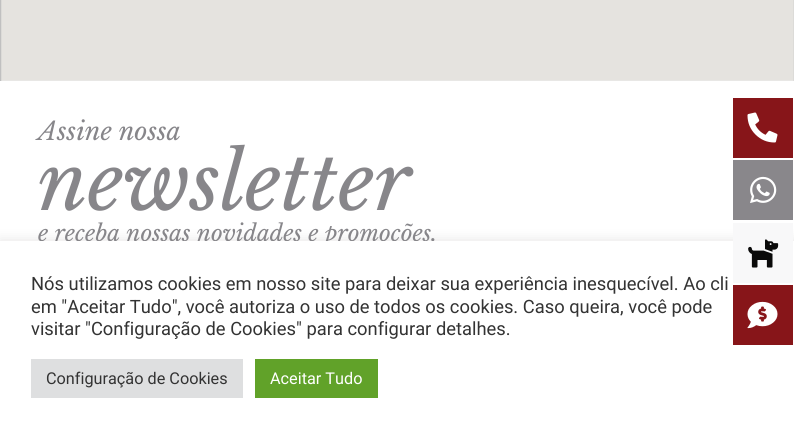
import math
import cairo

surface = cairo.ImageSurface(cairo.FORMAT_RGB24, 794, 434)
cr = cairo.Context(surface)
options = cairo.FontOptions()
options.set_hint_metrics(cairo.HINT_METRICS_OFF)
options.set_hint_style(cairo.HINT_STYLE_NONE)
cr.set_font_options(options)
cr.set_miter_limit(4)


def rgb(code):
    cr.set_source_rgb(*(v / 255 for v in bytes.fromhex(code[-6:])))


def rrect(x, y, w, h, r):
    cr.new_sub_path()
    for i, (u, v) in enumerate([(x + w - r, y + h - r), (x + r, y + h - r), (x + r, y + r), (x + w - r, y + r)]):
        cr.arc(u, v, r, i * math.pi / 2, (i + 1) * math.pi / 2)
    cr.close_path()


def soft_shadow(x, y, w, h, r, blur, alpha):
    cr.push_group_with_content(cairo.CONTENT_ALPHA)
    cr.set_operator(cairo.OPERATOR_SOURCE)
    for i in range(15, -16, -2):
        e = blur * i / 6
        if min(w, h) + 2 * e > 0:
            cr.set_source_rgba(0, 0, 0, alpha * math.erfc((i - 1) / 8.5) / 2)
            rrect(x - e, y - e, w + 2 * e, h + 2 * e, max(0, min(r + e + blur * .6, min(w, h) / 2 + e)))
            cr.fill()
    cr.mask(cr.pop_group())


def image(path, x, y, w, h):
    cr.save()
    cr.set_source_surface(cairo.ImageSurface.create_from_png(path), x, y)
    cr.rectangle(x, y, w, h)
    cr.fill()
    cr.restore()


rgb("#ffffff")
cr.paint()
image("img/1.png", 0, 0, 794, 81)
rgb("#871519")
cr.rectangle(733, 98, 60, 60)
cr.fill()
image("img/2.png", 747, 112, 31, 31)
rgb("#89878b")
cr.rectangle(733, 160, 60, 60)
cr.fill()
image("img/3.png", 750, 176, 27, 27)
rgb("#acabab")
soft_shadow(0, 240, 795, 194, 0, 6, 0.3)
cr.select_font_face("Libre Baskerville", cairo.FONT_SLANT_ITALIC)
cr.set_font_size(25)
rgb("#87868a")
cr.move_to(38, 140)
cr.show_text("Assine nossa")
cr.set_font_size(78.75)
cr.move_to(38, 210)
cr.show_text("newsletter")
cr.set_font_size(22.5)
cr.move_to(38, 241)
cr.show_text("e receba nossas novidades e promoções.")
rgb("#ffffff")
cr.rectangle(0, 241, 794, 193)
cr.fill()
rgb("#871519")
cr.rectangle(733, 285, 60, 60)
cr.fill()
image("img/5.png", 747, 301, 31, 28)
rgb("#f8f8f9")
cr.rectangle(733, 223, 60, 60)
cr.fill()
image("img/4.png", 748, 239, 31, 29)
cr.select_font_face("Roboto")
cr.set_font_size(18.35)
rgb("#333333")
for x, y, s in [
    (31, 290, "Nós utilizamos cookies em nosso site para deixar sua experiência inesquecível. Ao cli"),
    (31, 313, "em \"Aceitar Tudo\", você autoriza o uso de todos os cookies. Caso queira, você pode"),
    (31, 335, "visitar \"Configuração de Cookies\" para configurar detalhes."),
]:
    cr.move_to(x, y)
    cr.show_text(s)
rgb("#dedfe0")
cr.rectangle(31, 359, 212, 39)
cr.fill()
cr.set_font_size(16.25)
rgb("#333333")
cr.move_to(46, 384)
cr.show_text("Configuração de Cookies")
rgb("#61a229")
cr.rectangle(255, 359, 123, 39)
cr.fill()
rgb("#ffffff")
cr.move_to(270, 384)
cr.show_text("Aceitar Tudo")
surface.write_to_png("page.png")
